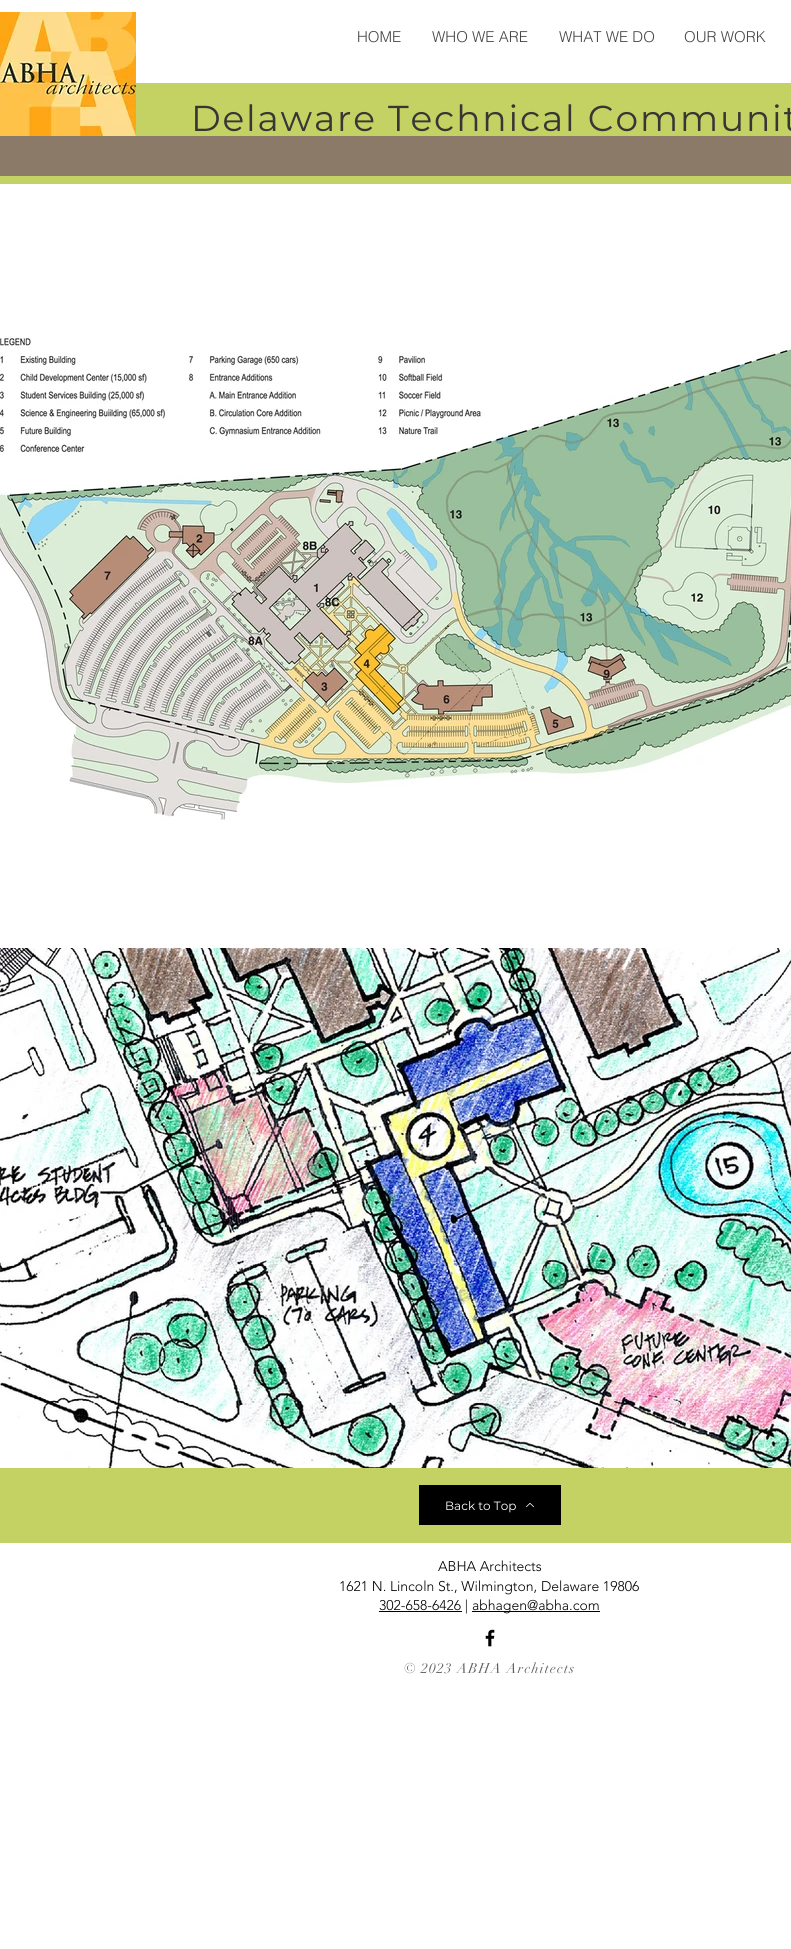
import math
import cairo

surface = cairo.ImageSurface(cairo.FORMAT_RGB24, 791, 1949)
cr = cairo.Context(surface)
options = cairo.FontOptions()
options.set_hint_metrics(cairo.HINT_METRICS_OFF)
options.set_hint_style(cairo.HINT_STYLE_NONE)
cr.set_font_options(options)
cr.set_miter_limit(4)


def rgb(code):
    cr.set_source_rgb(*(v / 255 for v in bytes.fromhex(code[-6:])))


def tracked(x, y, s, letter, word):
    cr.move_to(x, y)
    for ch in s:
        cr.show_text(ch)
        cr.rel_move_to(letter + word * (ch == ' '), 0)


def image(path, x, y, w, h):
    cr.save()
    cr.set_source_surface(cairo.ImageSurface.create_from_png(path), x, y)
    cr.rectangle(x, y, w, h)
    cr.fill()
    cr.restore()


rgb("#ffffff")
cr.paint()
rgb("#c3d262")
cr.rectangle(0, 83, 791, 101)
cr.fill()
image("img/1.png", 0, 12, 136, 124)
rgb("#8b7a67")
cr.rectangle(0, 136, 791, 40)
cr.fill()
image("img/2.png", 0, 220, 791, 718)
image("img/3.png", 0, 948, 791, 520)
rgb("#c3d262")
cr.rectangle(0, 1468, 791, 75)
cr.fill()
rgb("#000000")
cr.rectangle(419, 1485, 142, 40)
cr.fill()
image("img/4.png", 526, 1503, 8, 5)
cr.rectangle(379, 1611, 83, 1)
cr.fill()
cr.rectangle(472, 1611, 128, 1)
cr.fill()
image("img/5.png", 485, 1629, 10, 18)
cr.select_font_face("helvetica Light")
cr.set_font_size(15)
rgb("#444444")
for x, y, s in [
    (357, 42, "HOME"),
    (432, 42, "WHO WE ARE"),
    (559, 42, "WHAT WE DO"),
    (684, 42, "OUR WORK"),
]:
    cr.move_to(x, y)
    cr.show_text(s)
cr.select_font_face("Montserrat")
cr.set_font_size(36)
rgb("#363636")
tracked(191, 131, "Delaware Technical Communit", 1.8, 0)
cr.set_font_size(12)
rgb("#ffffff")
cr.move_to(445, 1510)
cr.show_text("Back to Top")
cr.select_font_face("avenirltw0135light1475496 Light")
cr.set_font_size(14)
rgb("#000000")
for x, y, s in [
    (438, 1571, "ABHA Architects"),
    (339, 1591, "1621 N. Lincoln St., Wilmington, Delaware 19806"),
    (379, 1610, "302-658-6426 |"),
    (472, 1610, "abhagen@abha.com"),
]:
    cr.move_to(x, y)
    cr.show_text(s)
cr.select_font_face("didot")
rgb("#605e5e")
tracked(404, 1673, "© 2023 ABHA Architects", 1.1, 0)
surface.write_to_png("page.png")
